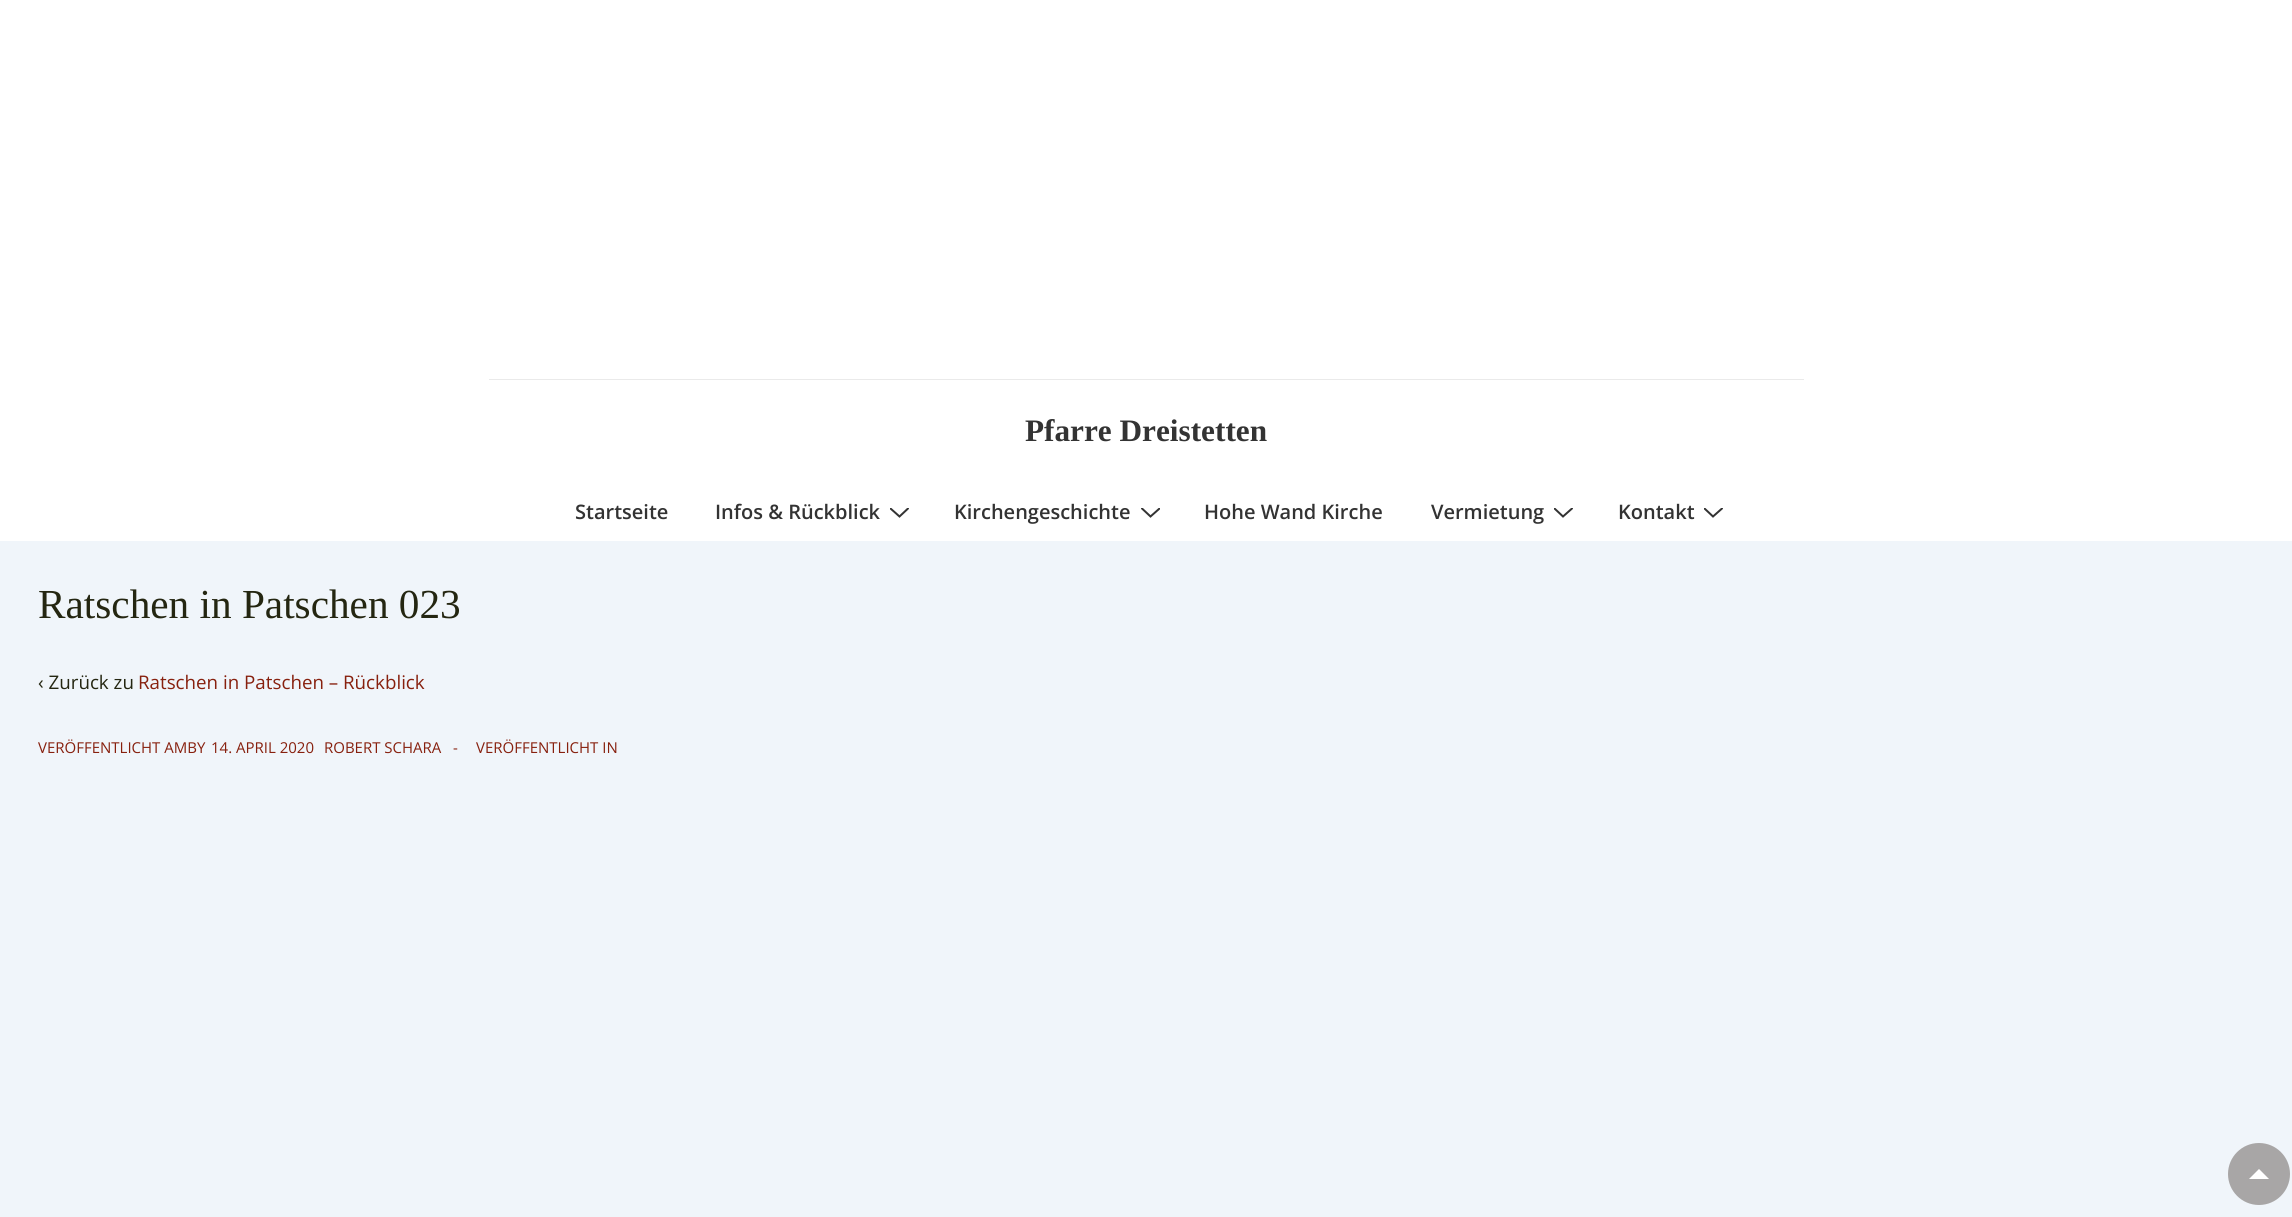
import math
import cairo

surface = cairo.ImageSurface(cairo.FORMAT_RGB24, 2292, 1217)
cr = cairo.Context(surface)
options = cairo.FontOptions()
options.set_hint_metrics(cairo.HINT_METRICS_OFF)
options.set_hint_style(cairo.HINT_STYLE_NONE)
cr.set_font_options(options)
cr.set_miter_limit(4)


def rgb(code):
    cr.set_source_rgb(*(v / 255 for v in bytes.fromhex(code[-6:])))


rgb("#f0f5fa")
cr.paint()
rgb("#ffffff")
cr.rectangle(0, 0, 2292, 541)
cr.fill()
rgb("#eaeaea")
cr.rectangle(489, 379, 1315, 1)
cr.fill()
cr.save()
cr.rectangle(890, 508, 19, 10)
cr.clip()
cr.new_path()
cr.move_to(890.5, 508.5)
cr.line_to(899.5, 516.5)
cr.line_to(908, 508.5)
rgb("#333333")
cr.set_line_cap(cairo.LINE_CAP_ROUND)
cr.stroke()
cr.restore()
cr.save()
cr.rectangle(1141, 508, 19, 10)
cr.clip()
cr.new_path()
cr.move_to(1142, 508.5)
cr.line_to(1150.5, 516.5)
cr.line_to(1159.5, 508.5)
rgb("#333333")
cr.set_line_cap(cairo.LINE_CAP_ROUND)
cr.stroke()
cr.restore()
cr.save()
cr.rectangle(1554, 508, 19, 10)
cr.clip()
cr.new_path()
cr.move_to(1554.5, 508.5)
cr.line_to(1563, 516.5)
cr.line_to(1572, 508.5)
rgb("#333333")
cr.set_line_cap(cairo.LINE_CAP_ROUND)
cr.stroke()
cr.restore()
cr.save()
cr.rectangle(1704, 508, 19, 10)
cr.clip()
cr.new_path()
cr.move_to(1704.5, 508.5)
cr.line_to(1713, 516.5)
cr.line_to(1722, 508.5)
rgb("#333333")
cr.set_line_cap(cairo.LINE_CAP_ROUND)
cr.stroke()
cr.restore()
rgb("#a8a6a6")
cr.arc(2259, 1174, 31, 0, 2 * math.pi)
cr.fill()
rgb("#ffffff")
cr.new_path()
cr.move_to(2269, 1179)
cr.line_to(2249, 1179)
cr.line_to(2259, 1169)
cr.close_path()
cr.fill()
cr.select_font_face("Liberation Serif", cairo.FONT_SLANT_NORMAL, cairo.FONT_WEIGHT_BOLD)
cr.set_font_size(31.25)
rgb("#333333")
cr.move_to(1025, 441)
cr.show_text("Pfarre Dreistetten")
cr.select_font_face("Open Sans SemiBold")
cr.set_font_size(20)
for x, y, s in [
    (575, 519, "Startseite"),
    (715, 519, "Infos & Rückblick"),
    (954, 519, "Kirchengeschichte"),
    (1204, 519, "Hohe Wand Kirche"),
    (1431, 519, "Vermietung"),
    (1618, 519, "Kontakt"),
]:
    cr.move_to(x, y)
    cr.show_text(s)
cr.select_font_face("Liberation Serif")
cr.set_font_size(41.25)
rgb("#242611")
cr.move_to(38, 618)
cr.show_text("Ratschen in Patschen 023")
cr.select_font_face("Open Sans")
cr.set_font_size(18.75)
cr.move_to(38, 689)
cr.show_text("‹ Zurück zu")
rgb("#87200e")
cr.move_to(138, 689)
cr.show_text("Ratschen in Patschen – Rückblick")
cr.set_font_size(15)
for x, y, s in [
    (38, 753, "VERÖFFENTLICHT AMBY"),
    (211, 753, "14. APRIL 2020"),
    (324, 753, "ROBERT SCHARA"),
    (453, 753, "-"),
    (476, 753, "VERÖFFENTLICHT IN"),
]:
    cr.move_to(x, y)
    cr.show_text(s)
surface.write_to_png("page.png")
